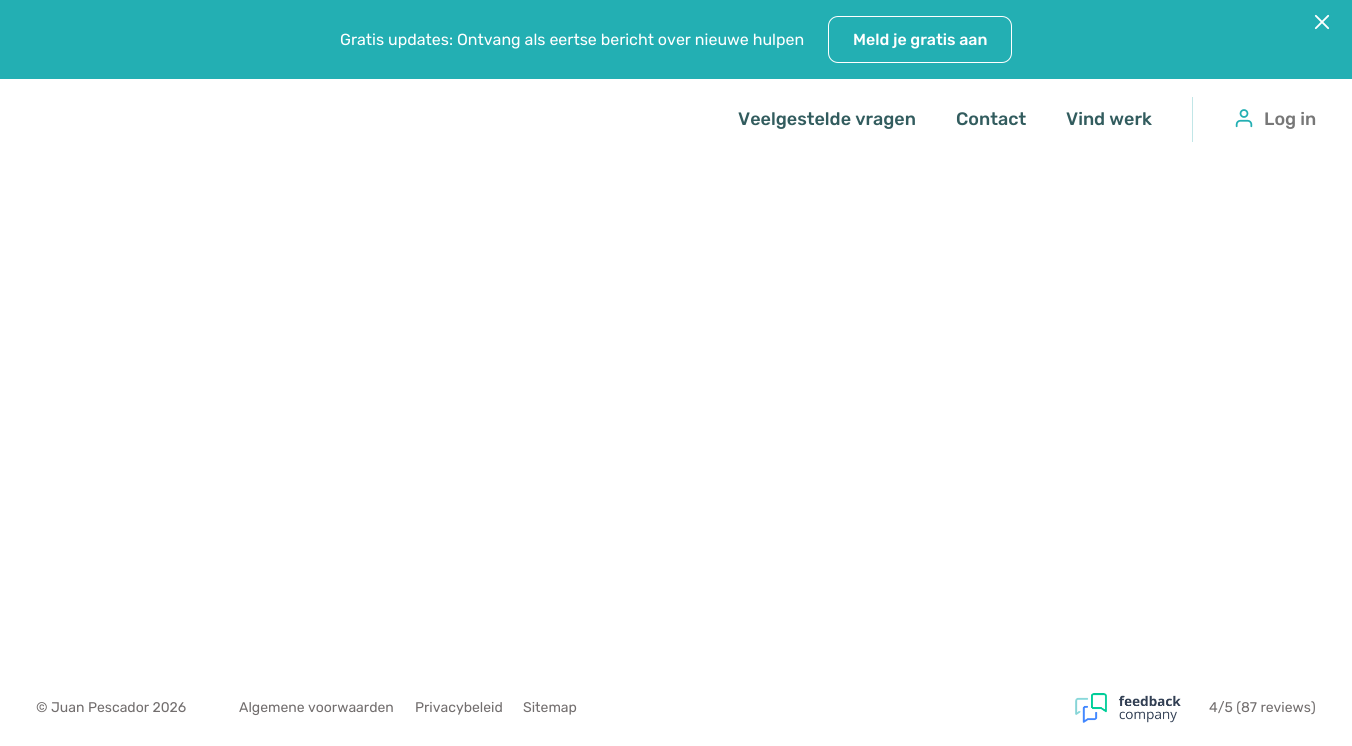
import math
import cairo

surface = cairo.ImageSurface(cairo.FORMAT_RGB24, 1352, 746)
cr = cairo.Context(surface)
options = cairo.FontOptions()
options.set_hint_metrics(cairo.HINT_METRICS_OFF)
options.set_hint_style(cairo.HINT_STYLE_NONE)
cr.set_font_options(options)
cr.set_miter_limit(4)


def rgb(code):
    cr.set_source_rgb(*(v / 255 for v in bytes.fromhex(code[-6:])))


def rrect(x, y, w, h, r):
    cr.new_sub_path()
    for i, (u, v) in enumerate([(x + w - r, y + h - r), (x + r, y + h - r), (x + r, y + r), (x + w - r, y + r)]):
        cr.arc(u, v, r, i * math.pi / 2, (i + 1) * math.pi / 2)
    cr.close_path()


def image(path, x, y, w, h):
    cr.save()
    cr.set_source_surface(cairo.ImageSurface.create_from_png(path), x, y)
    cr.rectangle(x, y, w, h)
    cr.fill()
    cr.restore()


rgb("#ffffff")
cr.paint()
rgb("#23afb3")
cr.rectangle(0, 0, 1352, 79)
cr.fill()
image("img/1.png", 1314, 14, 16, 16)
rrect(828.5, 16.5, 183, 46, 9.5)
rgb("#ffffff")
cr.set_line_width(1)
cr.stroke()
rgb("#c1e6e7")
cr.rectangle(1192, 97, 1, 45)
cr.fill()
image("img/2.png", 1235, 109, 18, 19)
image("img/3.png", 1075, 693, 106, 30)
cr.select_font_face("Rubik Light")
cr.set_font_size(16)
rgb("#ffffff")
cr.move_to(340, 45)
cr.show_text("Gratis updates: Ontvang als eertse bericht over nieuwe hulpen")
cr.select_font_face("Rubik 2 Light")
cr.move_to(853, 45)
cr.show_text("Meld je gratis aan")
cr.set_font_size(18)
rgb("#325c5e")
for x, y, s in [
    (738, 125, "Veelgestelde vragen"),
    (956, 125, "Contact"),
    (1066, 125, "Vind werk"),
]:
    cr.move_to(x, y)
    cr.show_text(s)
rgb("#777777")
cr.move_to(1264, 125)
cr.show_text("Log in")
cr.select_font_face("Rubik Light")
cr.set_font_size(14)
rgb("#726e6e")
for x, y, s in [
    (36, 712, "© Juan Pescador 2026"),
    (239, 712, "Algemene voorwaarden"),
    (415, 712, "Privacybeleid"),
    (523, 712, "Sitemap"),
    (1209, 712, "4/5 (87 reviews)"),
]:
    cr.move_to(x, y)
    cr.show_text(s)
surface.write_to_png("page.png")
